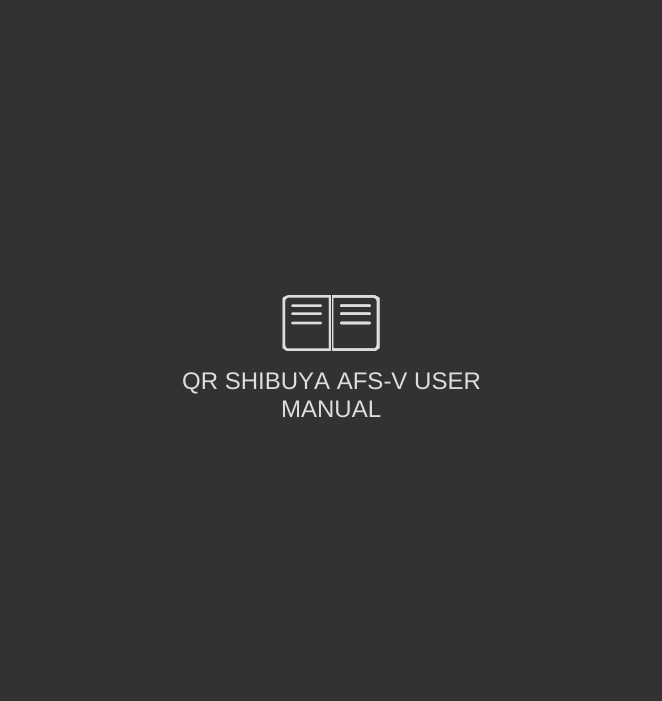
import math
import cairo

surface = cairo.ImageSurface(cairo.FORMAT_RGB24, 662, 701)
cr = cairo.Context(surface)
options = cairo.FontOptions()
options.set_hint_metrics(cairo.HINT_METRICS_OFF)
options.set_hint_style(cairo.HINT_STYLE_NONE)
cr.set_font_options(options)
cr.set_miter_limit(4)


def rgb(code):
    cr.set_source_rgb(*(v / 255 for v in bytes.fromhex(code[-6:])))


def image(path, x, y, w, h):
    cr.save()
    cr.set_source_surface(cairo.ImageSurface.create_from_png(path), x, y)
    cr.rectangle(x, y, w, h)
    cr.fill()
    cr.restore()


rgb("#323232")
cr.paint()
image("img/1.png", 282, 295, 49, 56)
image("img/2.png", 332, 295, 48, 56)
image("img/3.png", 333, 295, 47, 56)
cr.select_font_face("Liberation Sans")
cr.set_font_size(24)
rgb("#dddddd")
cr.move_to(182, 389)
cr.show_text("QR SHIBUYA AFS-V USER")
cr.move_to(281, 417)
cr.show_text("MANUAL")
surface.write_to_png("page.png")
